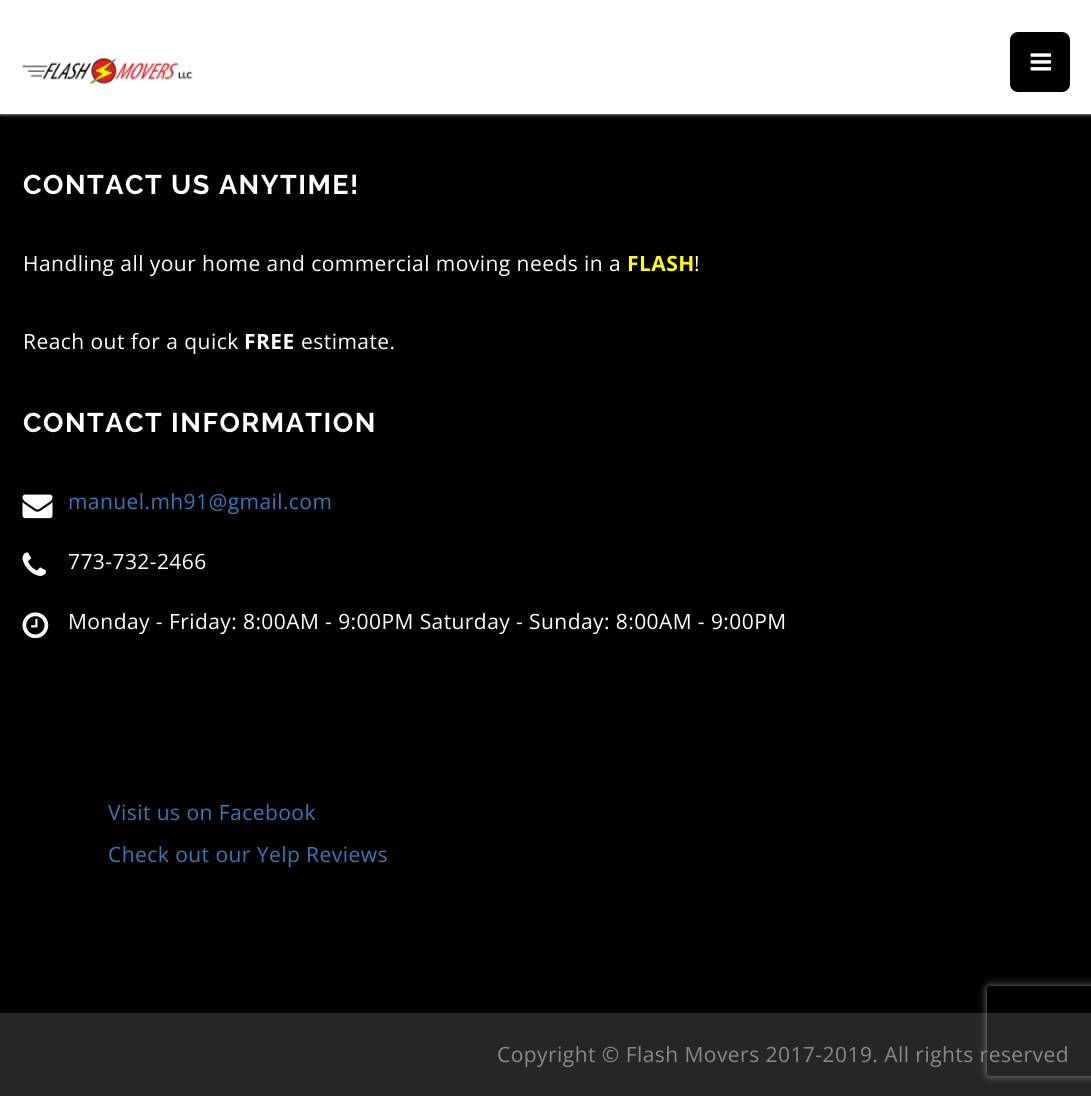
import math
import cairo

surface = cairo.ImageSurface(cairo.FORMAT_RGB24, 1091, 1096)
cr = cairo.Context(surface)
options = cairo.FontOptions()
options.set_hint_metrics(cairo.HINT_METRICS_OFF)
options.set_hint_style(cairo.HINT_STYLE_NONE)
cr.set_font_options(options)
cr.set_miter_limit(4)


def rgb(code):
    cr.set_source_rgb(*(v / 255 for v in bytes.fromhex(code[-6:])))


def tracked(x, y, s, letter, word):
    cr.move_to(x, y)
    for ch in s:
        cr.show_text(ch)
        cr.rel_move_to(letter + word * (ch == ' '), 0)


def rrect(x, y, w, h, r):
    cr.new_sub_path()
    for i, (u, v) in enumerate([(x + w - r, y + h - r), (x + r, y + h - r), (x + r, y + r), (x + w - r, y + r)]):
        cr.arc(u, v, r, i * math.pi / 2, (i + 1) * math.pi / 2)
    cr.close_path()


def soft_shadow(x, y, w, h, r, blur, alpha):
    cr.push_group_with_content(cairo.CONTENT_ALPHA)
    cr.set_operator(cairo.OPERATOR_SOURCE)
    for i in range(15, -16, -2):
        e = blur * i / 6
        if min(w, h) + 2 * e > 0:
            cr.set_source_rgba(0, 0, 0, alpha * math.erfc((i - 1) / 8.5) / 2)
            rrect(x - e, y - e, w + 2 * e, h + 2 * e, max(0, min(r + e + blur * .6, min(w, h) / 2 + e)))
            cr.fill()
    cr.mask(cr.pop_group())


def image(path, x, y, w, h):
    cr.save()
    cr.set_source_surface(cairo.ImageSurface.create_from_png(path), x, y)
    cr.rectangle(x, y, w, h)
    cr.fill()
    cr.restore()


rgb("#000000")
cr.paint()
rgb("#dddddd")
soft_shadow(0, 0, 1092, 114, 0, 2, 1)
rgb("#ffffff")
cr.rectangle(0, 0, 1091, 114)
cr.fill()
image("img/1.png", 22, 58, 171, 26)
rgb("#000000")
rrect(1011, 33, 58, 58, 7)
cr.fill_preserve()
cr.stroke()
image("img/2.png", 1030, 53, 22, 18)
image("img/3.png", 22, 494, 31, 25)
image("img/4.png", 22, 552, 24, 24)
image("img/5.png", 22, 612, 27, 27)
rgb("#262626")
cr.rectangle(0, 1013, 1091, 83)
cr.fill()
cr.save()
cr.set_fill_rule(cairo.FILL_RULE_EVEN_ODD)
cr.new_path()
cr.move_to(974, 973)
cr.line_to(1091, 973)
cr.line_to(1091, 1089)
cr.line_to(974, 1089)
cr.close_path()
cr.move_to(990, 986)
cr.line_to(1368, 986)
cr.curve_to(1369.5, 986, 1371, 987.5, 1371, 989)
cr.line_to(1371, 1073)
cr.curve_to(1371, 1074.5, 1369.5, 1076, 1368, 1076)
cr.line_to(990, 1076)
cr.curve_to(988.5, 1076, 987, 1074.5, 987, 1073)
cr.line_to(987, 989)
cr.curve_to(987, 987.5, 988.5, 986, 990, 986)
cr.close_path()
cr.clip()
rgb("#808080")
soft_shadow(987, 986, 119, 90, 3, 4, 1)
cr.restore()
cr.select_font_face("Raleway", cairo.FONT_SLANT_NORMAL, cairo.FONT_WEIGHT_BOLD)
cr.set_font_size(27)
rgb("#ffffff")
tracked(23, 194, "CONTACT US ANYTIME!", 1.5, 0)
cr.select_font_face("Open Sans")
cr.set_font_size(21)
tracked(23, 271, "Handling all your home and commercial moving needs in a", 0.45, 0)
cr.select_font_face("Open Sans", cairo.FONT_SLANT_NORMAL, cairo.FONT_WEIGHT_BOLD)
rgb("#ffff00")
tracked(627, 271, "FLASH", 0.45, 0)
cr.select_font_face("Open Sans")
rgb("#ffffff")
tracked(694, 271, "!", 0.45, 0)
tracked(23, 349, "Reach out for a quick", 0.45, 0)
cr.select_font_face("Open Sans", cairo.FONT_SLANT_NORMAL, cairo.FONT_WEIGHT_BOLD)
tracked(244, 349, "FREE", 0.45, 0)
cr.select_font_face("Open Sans")
tracked(301, 349, "estimate.", 0.45, 0)
cr.select_font_face("Raleway", cairo.FONT_SLANT_NORMAL, cairo.FONT_WEIGHT_BOLD)
cr.set_font_size(27)
tracked(23, 432, "CONTACT INFORMATION", 1.5, 0)
cr.select_font_face("Open Sans")
cr.set_font_size(21)
rgb("#337ab7")
tracked(68, 509, "manuel.mh91@gmail.com", 0.42, 0)
rgb("#ffffff")
tracked(68, 569, "773-732-2466", 0.42, 0)
tracked(68, 629, "Monday - Friday: 8:00AM - 9:00PM Saturday - Sunday: 8:00AM - 9:00PM", 0.42, 0)
rgb("#337ab7")
tracked(108, 820, "Visit us on Facebook", 0.45, 0)
tracked(108, 862, "Check out our Yelp Reviews", 0.45, 0)
rgb("#898989")
tracked(497, 1062, "Copyright © Flash Movers 2017-2019. All rights reserved", 0.45, 0)
surface.write_to_png("page.png")
